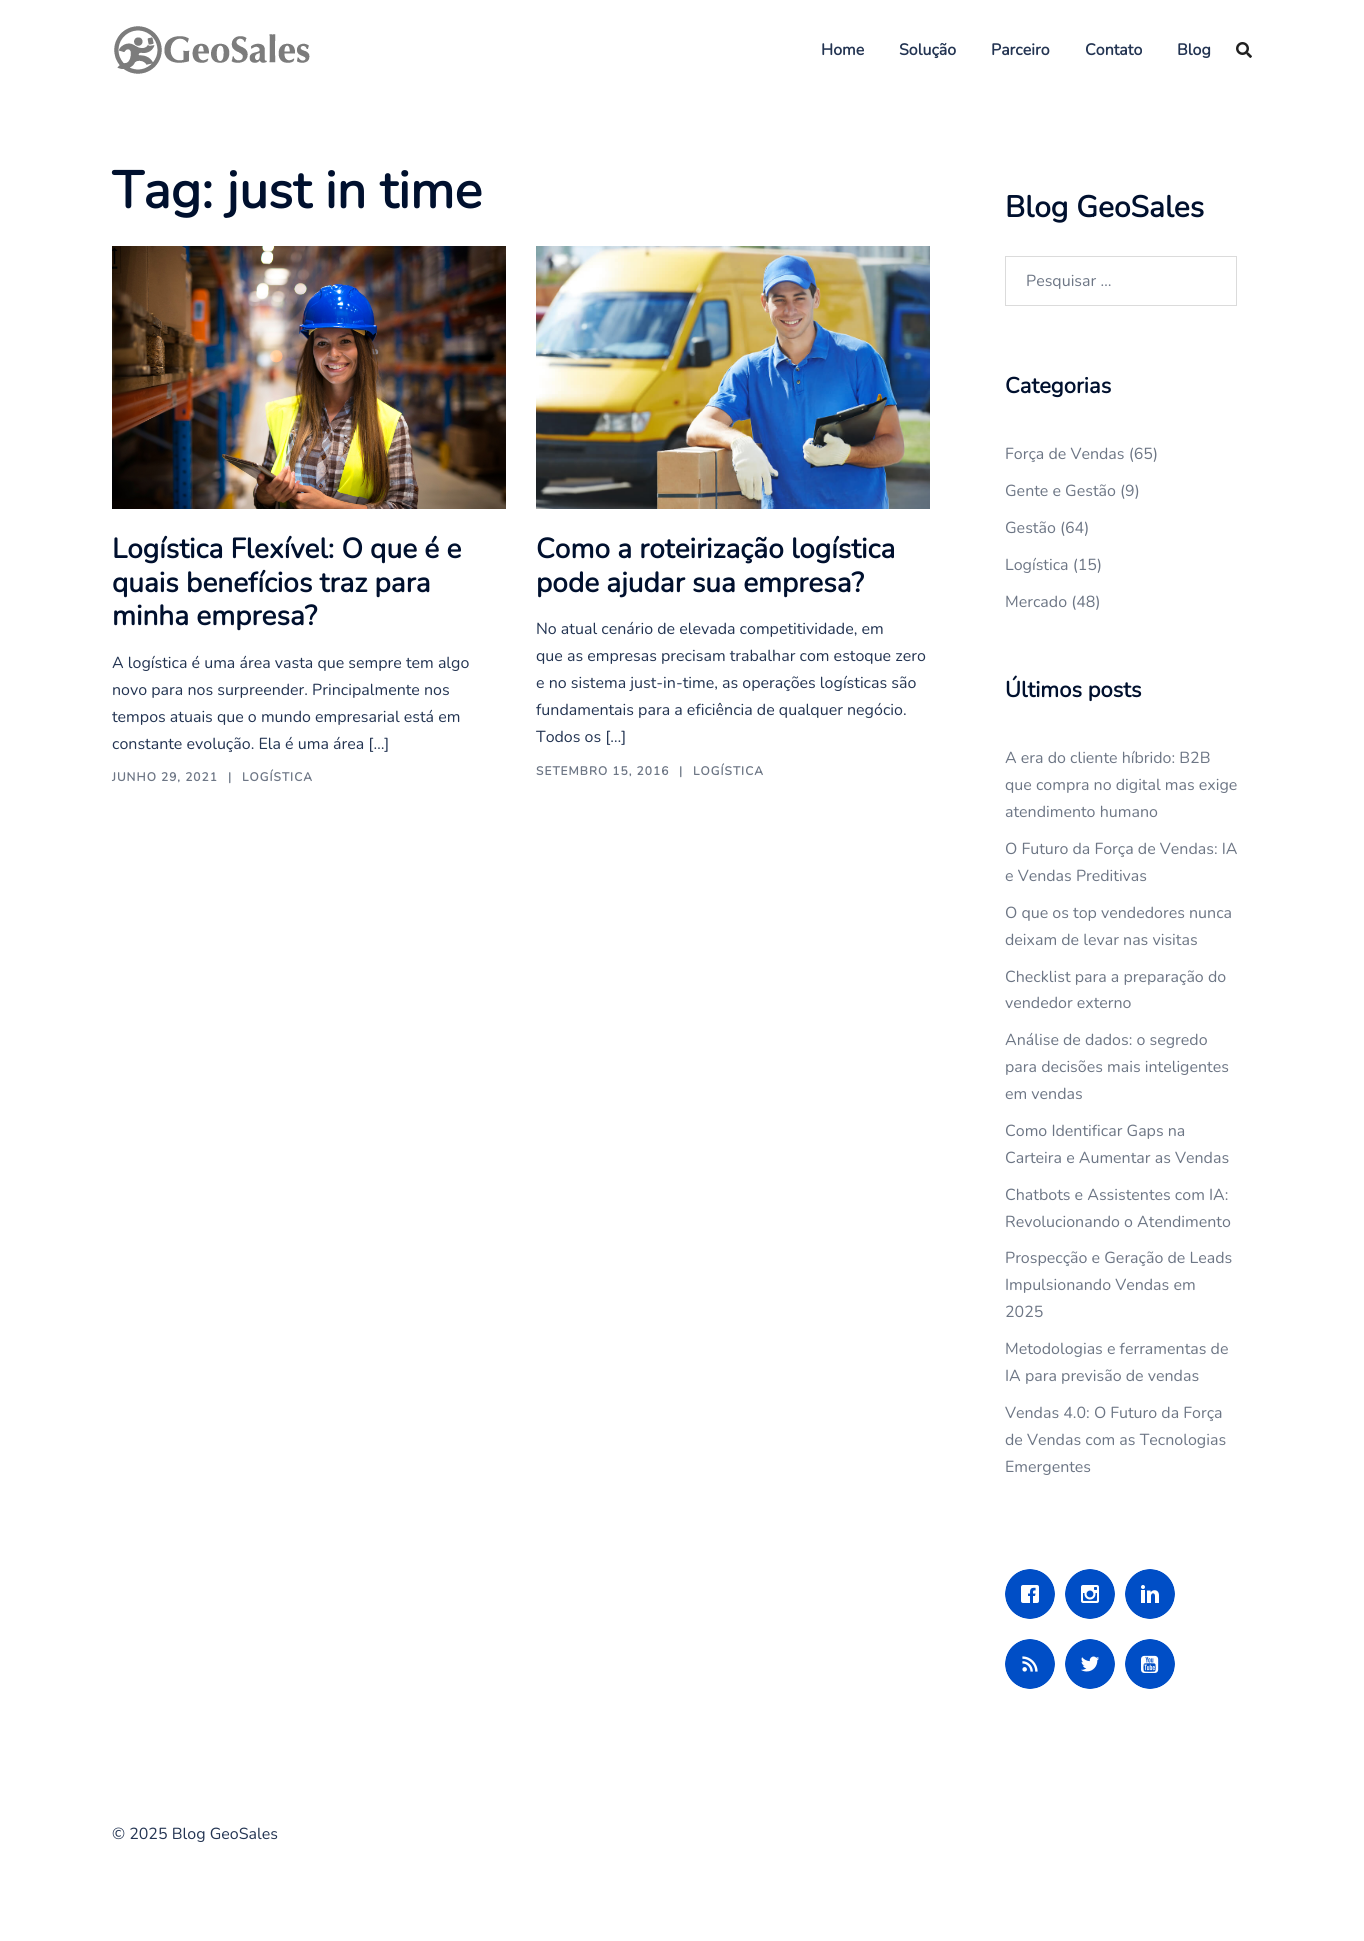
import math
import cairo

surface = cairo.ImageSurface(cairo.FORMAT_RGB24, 1364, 1941)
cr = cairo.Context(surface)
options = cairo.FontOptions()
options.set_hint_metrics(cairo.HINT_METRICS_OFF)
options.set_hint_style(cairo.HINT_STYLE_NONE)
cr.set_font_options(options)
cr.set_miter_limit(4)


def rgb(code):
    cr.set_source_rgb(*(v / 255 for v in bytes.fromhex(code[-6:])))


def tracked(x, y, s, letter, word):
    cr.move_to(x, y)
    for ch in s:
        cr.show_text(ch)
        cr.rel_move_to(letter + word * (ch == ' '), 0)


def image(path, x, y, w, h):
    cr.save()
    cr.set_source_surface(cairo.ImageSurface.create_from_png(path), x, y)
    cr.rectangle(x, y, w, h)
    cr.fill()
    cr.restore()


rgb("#ffffff")
cr.paint()
image("img/1.png", 114, 26, 196, 48)
image("img/2.png", 1236, 42, 16, 16)
image("img/3.png", 112, 246, 394, 263)
image("img/4.png", 536, 246, 394, 263)
cr.rectangle(1005.5, 256.5, 231, 49)
rgb("#dbdbdb")
cr.set_line_width(1)
cr.stroke()
rgb("#004ec6")
cr.arc(1030, 1594, 25, 0, 2 * math.pi)
cr.fill()
image("img/5.png", 1021, 1585, 18, 18)
cr.arc(1030, 1594, 26.5, 0, 2 * math.pi)
rgb("#ffffff")
cr.set_line_width(3)
cr.stroke()
rgb("#004ec6")
cr.arc(1090, 1594, 25, 0, 2 * math.pi)
cr.fill()
image("img/6.png", 1081, 1585, 18, 18)
cr.arc(1090, 1594, 26.5, 0, 2 * math.pi)
rgb("#ffffff")
cr.stroke()
rgb("#004ec6")
cr.arc(1150, 1594, 25, 0, 2 * math.pi)
cr.fill()
image("img/7.png", 1141, 1585, 18, 18)
cr.arc(1150, 1594, 26.5, 0, 2 * math.pi)
rgb("#ffffff")
cr.stroke()
rgb("#004ec6")
cr.arc(1030, 1664, 25, 0, 2 * math.pi)
cr.fill()
image("img/8.png", 1022, 1656, 16, 16)
cr.arc(1030, 1664, 26.5, 0, 2 * math.pi)
rgb("#ffffff")
cr.stroke()
rgb("#004ec6")
cr.arc(1090, 1664, 25, 0, 2 * math.pi)
cr.fill()
image("img/9.png", 1081, 1656, 18, 16)
cr.arc(1090, 1664, 26.5, 0, 2 * math.pi)
rgb("#ffffff")
cr.stroke()
rgb("#004ec6")
cr.arc(1150, 1664, 25, 0, 2 * math.pi)
cr.fill()
image("img/10.png", 1141, 1655, 18, 18)
cr.arc(1150, 1664, 26.5, 0, 2 * math.pi)
rgb("#ffffff")
cr.stroke()
cr.select_font_face("Nunito", cairo.FONT_SLANT_NORMAL, cairo.FONT_WEIGHT_BOLD)
cr.set_font_size(16)
rgb("#233452")
for x, y, s in [
    (821, 55, "Home"),
    (899, 55, "Solução"),
    (991, 55, "Parceiro"),
    (1085, 55, "Contato"),
    (1177, 55, "Blog"),
]:
    cr.move_to(x, y)
    cr.show_text(s)
cr.set_font_size(52)
rgb("#00102e")
cr.move_to(112, 208)
cr.show_text("Tag: just in time")
cr.set_font_size(28)
for x, y, s in [
    (112, 558, "Logística Flexível: O que é e"),
    (112, 592, "quais benefícios traz para"),
    (112, 625, "minha empresa?"),
]:
    cr.move_to(x, y)
    cr.show_text(s)
cr.select_font_face("Nunito ExtraLight")
cr.set_font_size(16)
rgb("#233452")
for x, y, s in [
    (112, 668, "A logística é uma área vasta que sempre tem algo"),
    (112, 695, "novo para nos surpreender. Principalmente nos"),
    (112, 722, "tempos atuais que o mundo empresarial está em"),
    (112, 749, "constante evolução. Ela é uma área […]"),
]:
    cr.move_to(x, y)
    cr.show_text(s)
cr.select_font_face("Nunito", cairo.FONT_SLANT_NORMAL, cairo.FONT_WEIGHT_BOLD)
cr.set_font_size(12)
rgb("#6d7685")
for x, y, s in [
    (112, 781, "JUNHO 29, 2021"),
    (228, 781, "|"),
    (242, 781, "LOGÍSTICA"),
]:
    tracked(x, y, s, 1, 0)
cr.set_font_size(28)
rgb("#00102e")
cr.move_to(536, 558)
cr.show_text("Como a roteirização logística")
cr.move_to(536, 592)
cr.show_text("pode ajudar sua empresa?")
cr.select_font_face("Nunito ExtraLight")
cr.set_font_size(16)
rgb("#233452")
for x, y, s in [
    (536, 634, "No atual cenário de elevada competitividade, em"),
    (536, 661, "que as empresas precisam trabalhar com estoque zero"),
    (536, 688, "e no sistema just-in-time, as operações logísticas são"),
    (536, 715, "fundamentais para a eficiência de qualquer negócio."),
    (536, 742, "Todos os […]"),
]:
    cr.move_to(x, y)
    cr.show_text(s)
cr.select_font_face("Nunito", cairo.FONT_SLANT_NORMAL, cairo.FONT_WEIGHT_BOLD)
cr.set_font_size(12)
rgb("#6d7685")
for x, y, s in [
    (536, 775, "SETEMBRO 15, 2016"),
    (679, 775, "|"),
    (693, 775, "LOGÍSTICA"),
]:
    tracked(x, y, s, 1, 0)
cr.set_font_size(30)
rgb("#00102e")
cr.move_to(1005, 217)
cr.show_text("Blog GeoSales")
cr.select_font_face("Nunito ExtraLight")
cr.set_font_size(16)
rgb("#6d7685")
cr.move_to(1026, 286)
cr.show_text("Pesquisar …")
cr.select_font_face("Nunito", cairo.FONT_SLANT_NORMAL, cairo.FONT_WEIGHT_BOLD)
cr.set_font_size(22)
rgb("#00102e")
cr.move_to(1005, 393)
cr.show_text("Categorias")
cr.select_font_face("Nunito ExtraLight")
cr.set_font_size(16)
rgb("#6d7685")
for x, y, s in [
    (1005, 459, "Força de Vendas (65)"),
    (1005, 496, "Gente e Gestão (9)"),
    (1005, 533, "Gestão (64)"),
    (1005, 570, "Logística (15)"),
    (1005, 607, "Mercado (48)"),
]:
    cr.move_to(x, y)
    cr.show_text(s)
cr.select_font_face("Nunito", cairo.FONT_SLANT_NORMAL, cairo.FONT_WEIGHT_BOLD)
cr.set_font_size(22)
rgb("#00102e")
cr.move_to(1005, 697)
cr.show_text("Últimos posts")
cr.select_font_face("Nunito ExtraLight")
cr.set_font_size(16)
rgb("#6d7685")
for x, y, s in [
    (1005, 763, "A era do cliente híbrido: B2B"),
    (1005, 790, "que compra no digital mas exige"),
    (1005, 817, "atendimento humano"),
    (1005, 854, "O Futuro da Força de Vendas: IA"),
    (1005, 881, "e Vendas Preditivas"),
    (1005, 918, "O que os top vendedores nunca"),
    (1005, 945, "deixam de levar nas visitas"),
    (1005, 982, "Checklist para a preparação do"),
    (1005, 1008, "vendedor externo"),
    (1005, 1045, "Análise de dados: o segredo"),
    (1005, 1072, "para decisões mais inteligentes"),
    (1005, 1099, "em vendas"),
    (1005, 1136, "Como Identificar Gaps na"),
    (1005, 1163, "Carteira e Aumentar as Vendas"),
    (1005, 1200, "Chatbots e Assistentes com IA:"),
    (1005, 1227, "Revolucionando o Atendimento"),
    (1005, 1263, "Prospecção e Geração de Leads"),
    (1005, 1290, "Impulsionando Vendas em"),
    (1005, 1317, "2025"),
    (1005, 1354, "Metodologias e ferramentas de"),
    (1005, 1381, "IA para previsão de vendas"),
    (1005, 1418, "Vendas 4.0: O Futuro da Força"),
    (1005, 1445, "de Vendas com as Tecnologias"),
    (1005, 1472, "Emergentes"),
]:
    cr.move_to(x, y)
    cr.show_text(s)
rgb("#233452")
cr.move_to(112, 1839)
cr.show_text("© 2025 Blog GeoSales")
surface.write_to_png("page.png")
